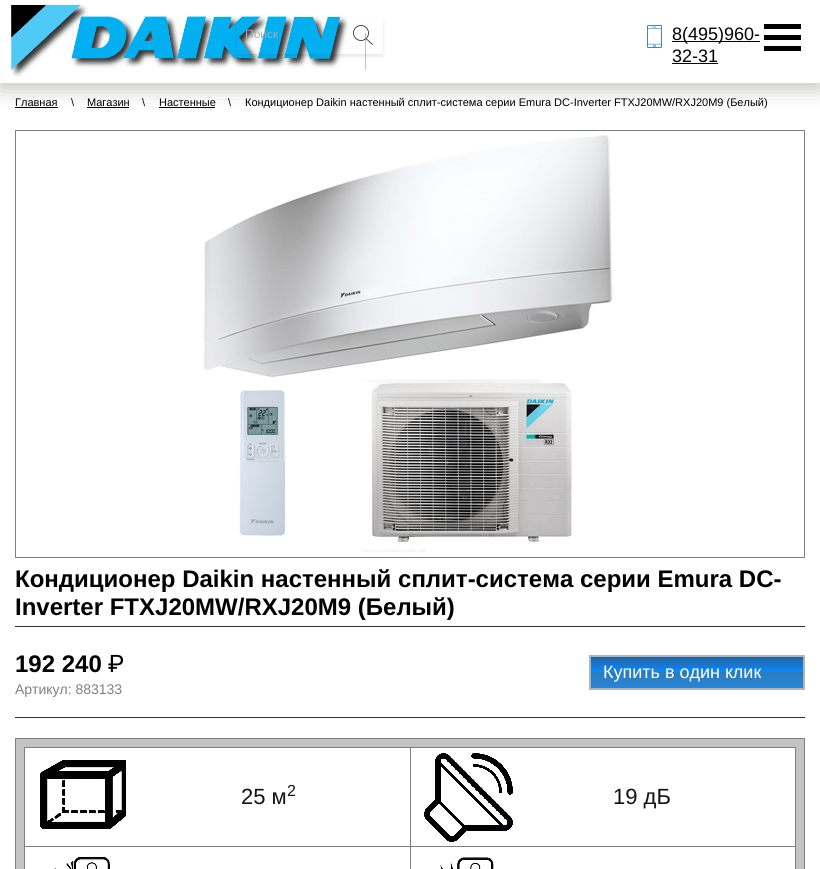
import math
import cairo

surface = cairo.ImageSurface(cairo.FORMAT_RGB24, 820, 869)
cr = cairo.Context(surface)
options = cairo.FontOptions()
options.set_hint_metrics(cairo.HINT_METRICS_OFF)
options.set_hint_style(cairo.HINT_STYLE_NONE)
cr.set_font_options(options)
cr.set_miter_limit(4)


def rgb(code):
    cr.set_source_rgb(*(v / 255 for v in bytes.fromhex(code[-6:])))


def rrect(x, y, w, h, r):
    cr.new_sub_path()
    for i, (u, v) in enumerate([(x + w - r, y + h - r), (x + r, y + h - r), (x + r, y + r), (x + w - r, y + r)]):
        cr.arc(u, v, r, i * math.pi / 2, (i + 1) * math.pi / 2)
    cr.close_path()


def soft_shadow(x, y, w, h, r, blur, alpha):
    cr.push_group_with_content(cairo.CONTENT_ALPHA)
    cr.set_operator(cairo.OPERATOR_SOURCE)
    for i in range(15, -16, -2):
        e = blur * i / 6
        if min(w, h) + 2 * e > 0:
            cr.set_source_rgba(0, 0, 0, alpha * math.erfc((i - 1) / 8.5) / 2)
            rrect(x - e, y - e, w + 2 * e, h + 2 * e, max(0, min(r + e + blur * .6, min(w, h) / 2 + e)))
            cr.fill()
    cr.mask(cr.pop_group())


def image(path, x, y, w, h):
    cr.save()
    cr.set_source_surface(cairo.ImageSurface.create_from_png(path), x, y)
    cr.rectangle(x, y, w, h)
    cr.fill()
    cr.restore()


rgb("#ffffff")
cr.paint()
for x, y, w, h, color in [
    (15, 107, 43, 1, "#000000"),
    (87, 107, 42, 1, "#000000"),
    (159, 107, 56, 1, "#000000"),
]:
    rgb(color)
    cr.rectangle(x, y, w, h)
    cr.fill()
cr.save()
cr.rectangle(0, 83, 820, 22)
cr.clip()
rgb("#49473b")
soft_shadow(0, 5, 820, 83, 0, 10.5, 0.35)
cr.restore()
image("img/1.png", 11, 4, 338, 73)
rgb("#c1c1c1")
cr.rectangle(365, 33, 1, 37)
cr.fill()
image("img/2.png", 647, 25, 15, 23)
rgb("#000000")
cr.rectangle(672, 41, 88, 1)
cr.fill()
cr.rectangle(672, 63, 46, 1)
cr.fill()
cr.save()
cr.set_fill_rule(cairo.FILL_RULE_EVEN_ODD)
cr.new_path()
cr.move_to(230, 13)
cr.line_to(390, 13)
cr.line_to(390, 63)
cr.line_to(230, 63)
cr.close_path()
cr.move_to(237, 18)
cr.line_to(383, 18)
cr.line_to(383, 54)
cr.line_to(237, 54)
cr.close_path()
cr.clip()
rgb("#000000")
soft_shadow(237, 20, 146, 36, 0, 2, 0.11)
cr.restore()
cr.arc(361, 33, 7.5, 0, 2 * math.pi)
rgb("#231f20")
cr.set_line_width(0.8)
cr.stroke()
cr.new_path()
cr.move_to(372.5, 44.5)
cr.line_to(366.5, 39)
cr.set_line_cap(cairo.LINE_CAP_ROUND)
cr.set_line_join(cairo.LINE_JOIN_ROUND)
cr.stroke()
for x, y, w, h, color in [
    (764, 24, 37, 5, "#000000"),
    (764, 35, 37, 5, "#000000"),
    (764, 46, 37, 5, "#000000"),
]:
    rgb(color)
    cr.rectangle(x, y, w, h)
    cr.fill()
cr.rectangle(15.5, 130.5, 789, 427)
rgb("#7f7f7f")
cr.set_line_width(1)
cr.set_line_cap(cairo.LINE_CAP_BUTT)
cr.set_line_join(cairo.LINE_JOIN_MITER)
cr.stroke()
image("img/3.png", 204, 135, 409, 418)
rgb("#2f2f2f")
cr.rectangle(15, 626, 790, 1)
cr.fill()
cr.rectangle(15, 717, 790, 1)
cr.fill()
gradient = cairo.LinearGradient(697, 657, 697, 688)
gradient.add_color_stop_rgba(0, 0.125, 0.392, 0.635, 1)
gradient.add_color_stop_rgba(0.5, 0.055, 0.537, 0.98, 1)
gradient.add_color_stop_rgba(0.5, 0.165, 0.49, 0.741, 1)
gradient.add_color_stop_rgba(1, 0.165, 0.522, 0.847, 1)
cr.set_source(gradient)
cr.rectangle(591, 657, 212, 31)
cr.fill()
cr.rectangle(590, 656, 214, 33)
rgb("#b3b3b3")
cr.set_line_width(2)
cr.stroke()
rgb("#c3c3c3")
cr.rectangle(15.5, 738.5, 789, 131)
cr.fill_preserve()
rgb("#7f7f7f")
cr.set_line_width(1)
cr.stroke()
for x, y, w, h, color in [
    (25, 748, 770, 121, "#ffffff"),
    (24, 747, 772, 1, "#7f7f7f"),
    (795, 747, 1, 122, "#7f7f7f"),
    (24, 747, 1, 122, "#7f7f7f"),
    (25, 846, 770, 1, "#7f7f7f"),
]:
    rgb(color)
    cr.rectangle(x, y, w, h)
    cr.fill()
image("img/4.png", 40, 760, 86, 69)
cr.rectangle(410, 748, 1, 121)
cr.fill()
image("img/5.png", 424, 753, 89, 89)
image("img/6.png", 54, 854, 57, 15)
image("img/7.png", 440, 857, 54, 12)
cr.select_font_face("Liberation Sans")
cr.set_font_size(18)
rgb("#000000")
cr.move_to(672, 40)
cr.show_text("8(495)960-")
cr.move_to(672, 62)
cr.show_text("32-31")
cr.set_font_size(12)
rgb("#ababab")
cr.move_to(245, 38)
cr.show_text("Поиск")
cr.set_font_size(11)
rgb("#000000")
for x, y, s in [
    (15, 106, "Главная"),
    (71, 106, "\\"),
    (87, 106, "Магазин"),
    (142, 106, "\\"),
    (159, 106, "Настенные"),
    (228, 106, "\\"),
    (245, 106, "Кондиционер Daikin настенный сплит-система серии Emura DC-Inverter FTXJ20MW/RXJ20M9 (Белый)"),
]:
    cr.move_to(x, y)
    cr.show_text(s)
cr.select_font_face("Liberation Sans", cairo.FONT_SLANT_NORMAL, cairo.FONT_WEIGHT_BOLD)
cr.set_font_size(24)
for x, y, s in [
    (15, 587, "Кондиционер Daikin настенный сплит-система серии Emura DC-"),
    (15, 615, "Inverter FTXJ20MW/RXJ20M9 (Белый)"),
    (15, 672, "192 240"),
]:
    cr.move_to(x, y)
    cr.show_text(s)
cr.select_font_face("Roboto")
cr.move_to(108, 672)
cr.show_text("₽")
cr.select_font_face("Liberation Sans")
cr.set_font_size(14)
rgb("#808080")
cr.move_to(15, 694)
cr.show_text("Артикул: 883133")
cr.set_font_size(18)
rgb("#ffffff")
cr.move_to(603, 678)
cr.show_text("Купить в один клик")
cr.set_font_size(22)
rgb("#131313")
cr.move_to(241, 804)
cr.show_text("25 м")
cr.set_font_size(16)
cr.move_to(287, 796)
cr.show_text("2")
cr.set_font_size(22)
cr.move_to(613, 804)
cr.show_text("19 дБ")
surface.write_to_png("page.png")
